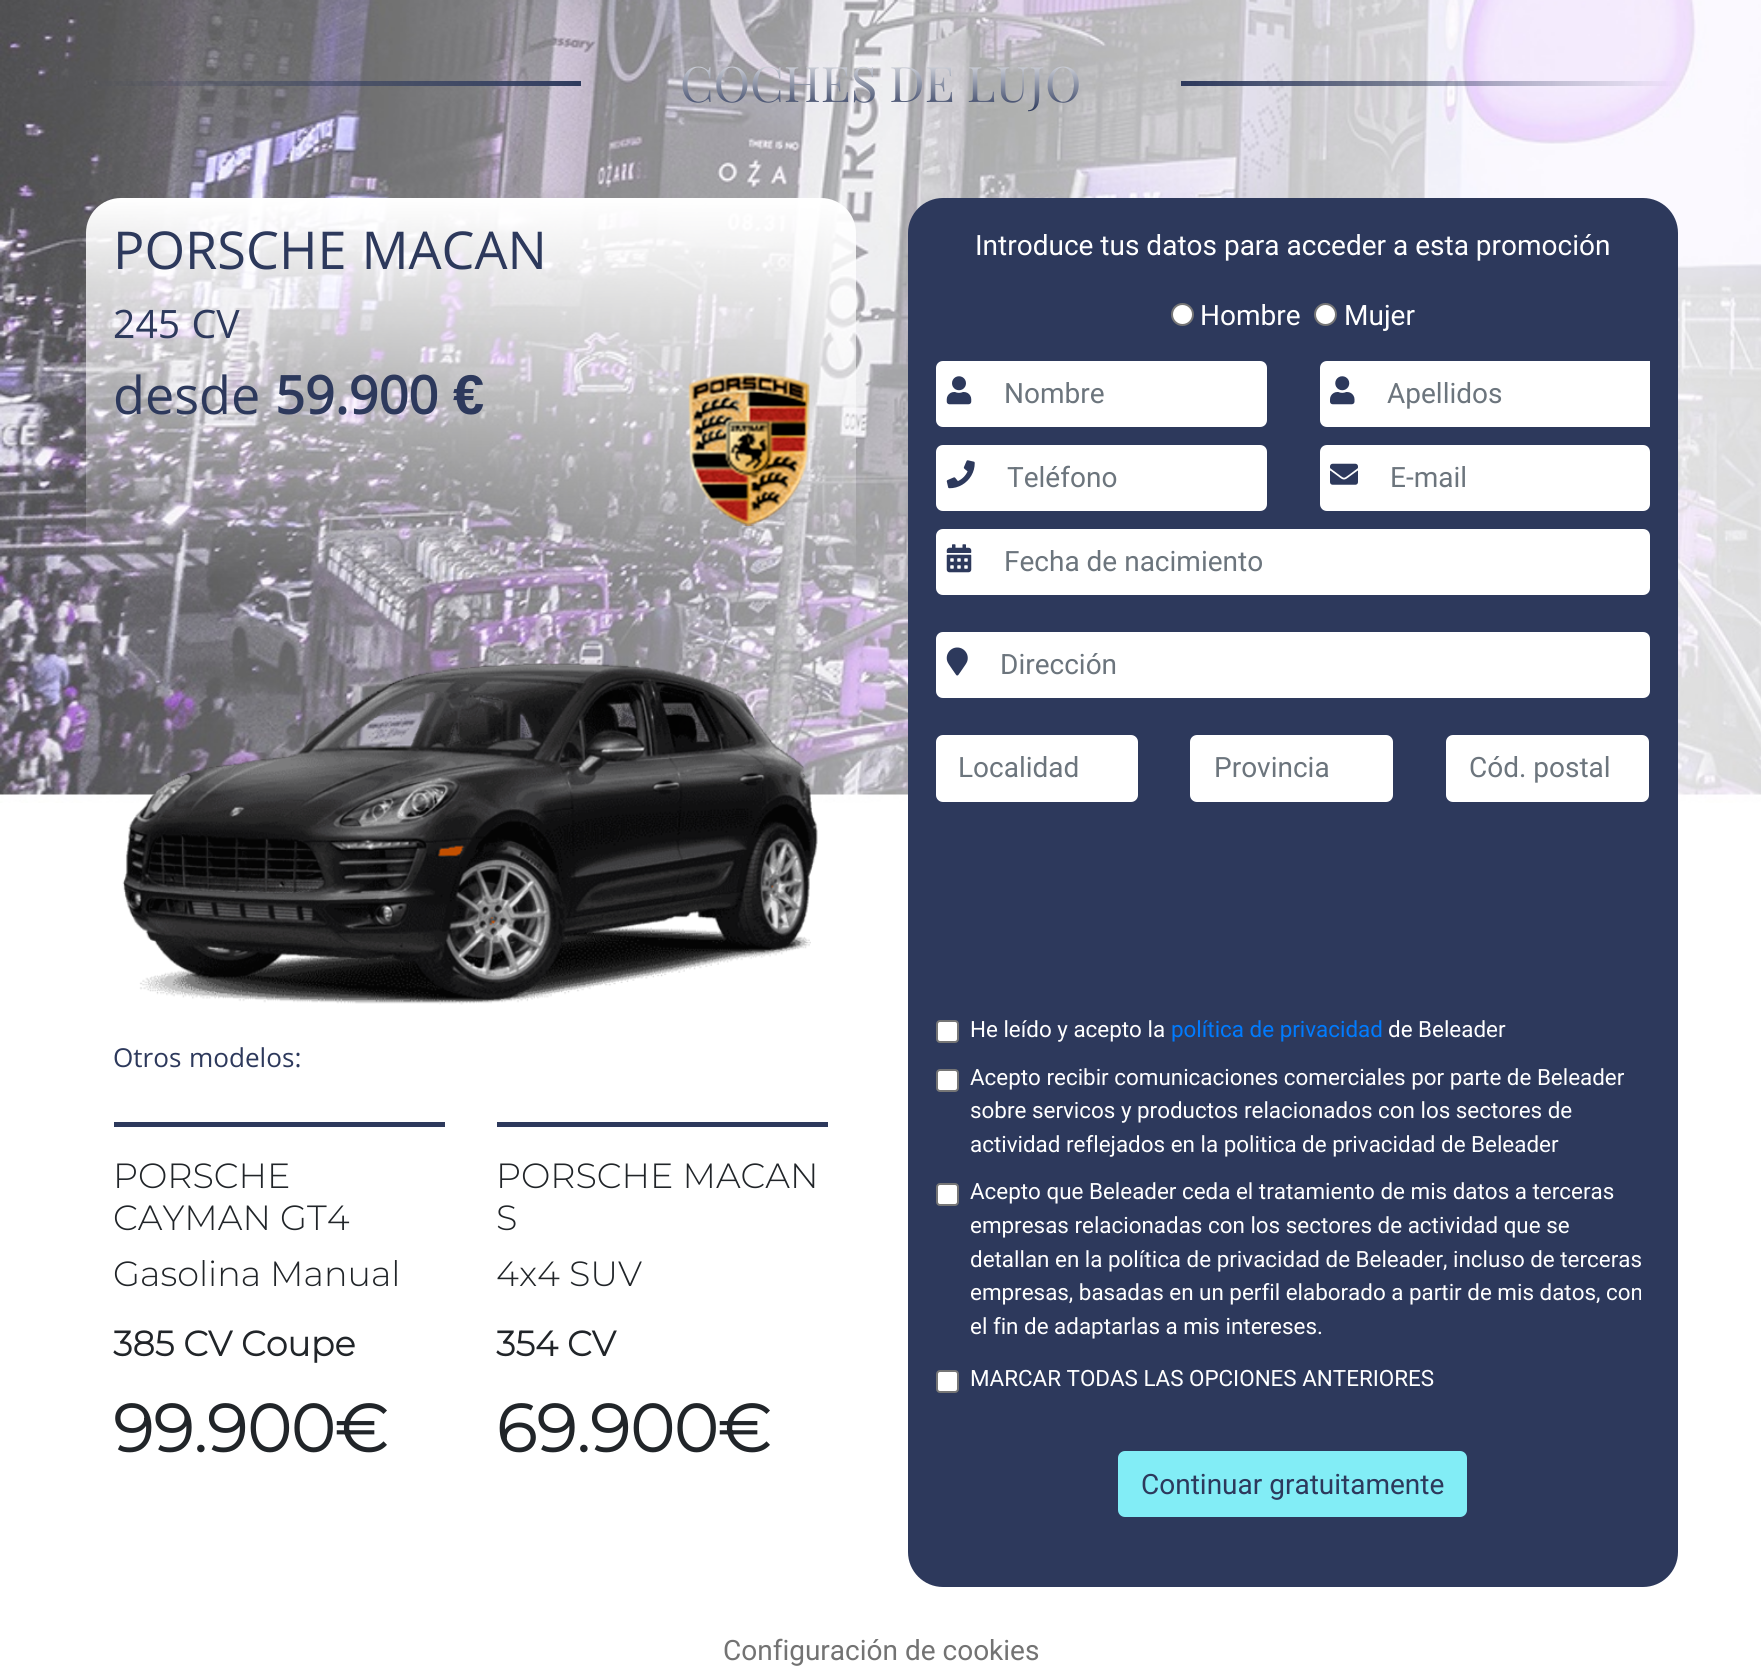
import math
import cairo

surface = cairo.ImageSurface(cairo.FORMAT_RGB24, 1761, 1676)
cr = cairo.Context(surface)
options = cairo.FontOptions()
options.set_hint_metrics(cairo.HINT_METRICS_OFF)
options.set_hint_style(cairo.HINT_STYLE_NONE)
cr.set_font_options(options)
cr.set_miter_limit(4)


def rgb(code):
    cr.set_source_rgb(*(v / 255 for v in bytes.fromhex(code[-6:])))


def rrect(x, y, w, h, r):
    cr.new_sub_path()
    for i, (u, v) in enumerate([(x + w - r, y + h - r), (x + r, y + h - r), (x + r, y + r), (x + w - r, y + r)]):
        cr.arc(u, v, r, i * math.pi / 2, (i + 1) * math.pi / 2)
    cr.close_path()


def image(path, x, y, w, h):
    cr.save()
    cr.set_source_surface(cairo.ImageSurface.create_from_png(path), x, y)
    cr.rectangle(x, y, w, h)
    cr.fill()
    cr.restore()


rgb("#ffffff")
cr.paint()
image("img/1.png", 0, 0, 1761, 803)
gradient = cairo.LinearGradient(471, 198, 471, 1507)
gradient.add_color_stop_rgba(0, 1, 1, 1, 1)
gradient.add_color_stop_rgba(0.29, 1, 1, 1, 0)
cr.set_source(gradient)
rrect(86, 198, 770, 1309, 35)
cr.fill()
image("img/2.png", 688, 372, 122, 154)
image("img/3.png", 122, 663, 696, 342)
rgb("#2d395c")
cr.rectangle(114, 1122, 331, 5)
cr.fill()
cr.rectangle(497, 1122, 331, 5)
cr.fill()
rrect(908, 198, 770, 1389, 35)
cr.fill()
rgb("#ffffff")
cr.arc(1182.5, 314.5, 10.5, 0, 2 * math.pi)
cr.fill_preserve()
rgb("#767676")
cr.stroke()
rgb("#ffffff")
cr.arc(1325.5, 314.5, 10.5, 0, 2 * math.pi)
cr.fill_preserve()
rgb("#767676")
cr.stroke()
rgb("#ffffff")
cr.new_path()
cr.move_to(943, 361)
cr.line_to(982, 361)
cr.line_to(982, 427)
cr.line_to(943, 427)
cr.curve_to(939, 427, 936, 424, 936, 420)
cr.line_to(936, 368)
cr.curve_to(936, 364, 939, 361, 943, 361)
cr.close_path()
cr.fill()
image("img/4.png", 946, 376, 26, 29)
cr.new_path()
cr.move_to(983, 362)
cr.line_to(1260, 362)
cr.curve_to(1263.5, 362, 1266, 364.5, 1266, 368)
cr.line_to(1266, 420)
cr.curve_to(1266, 423.5, 1263.5, 426, 1260, 426)
cr.line_to(983, 426)
cr.close_path()
cr.fill_preserve()
cr.stroke()
cr.new_path()
cr.move_to(1327, 361)
cr.line_to(1365, 361)
cr.line_to(1365, 427)
cr.line_to(1327, 427)
cr.curve_to(1323, 427, 1320, 424, 1320, 420)
cr.line_to(1320, 368)
cr.curve_to(1320, 364, 1323, 361, 1327, 361)
cr.close_path()
cr.fill()
image("img/5.png", 1330, 376, 25, 29)
cr.rectangle(1366, 362, 283, 64)
cr.fill_preserve()
cr.stroke()
cr.new_path()
cr.move_to(943, 445)
cr.line_to(985, 445)
cr.line_to(985, 511)
cr.line_to(943, 511)
cr.curve_to(939, 511, 936, 508, 936, 504)
cr.line_to(936, 452)
cr.curve_to(936, 448, 939, 445, 943, 445)
cr.close_path()
cr.fill()
image("img/6.png", 946, 460, 29, 29)
cr.new_path()
cr.move_to(986, 446)
cr.line_to(1260, 446)
cr.curve_to(1263.5, 446, 1266, 448.5, 1266, 452)
cr.line_to(1266, 504)
cr.curve_to(1266, 507.5, 1263.5, 510, 1260, 510)
cr.line_to(986, 510)
cr.close_path()
cr.fill_preserve()
cr.stroke()
cr.new_path()
cr.move_to(1327, 445)
cr.line_to(1369, 445)
cr.line_to(1369, 511)
cr.line_to(1327, 511)
cr.curve_to(1323, 511, 1320, 508, 1320, 504)
cr.line_to(1320, 452)
cr.curve_to(1320, 448, 1323, 445, 1327, 445)
cr.close_path()
cr.fill()
image("img/7.png", 1330, 463, 28, 22)
cr.new_path()
cr.move_to(1370, 446)
cr.line_to(1643, 446)
cr.curve_to(1646.5, 446, 1649, 448.5, 1649, 452)
cr.line_to(1649, 504)
cr.curve_to(1649, 507.5, 1646.5, 510, 1643, 510)
cr.line_to(1370, 510)
cr.close_path()
cr.fill_preserve()
cr.stroke()
cr.new_path()
cr.move_to(943, 529)
cr.line_to(982, 529)
cr.line_to(982, 595)
cr.line_to(943, 595)
cr.curve_to(939, 595, 936, 592, 936, 588)
cr.line_to(936, 536)
cr.curve_to(936, 532, 939, 529, 943, 529)
cr.close_path()
cr.fill()
image("img/8.png", 946, 544, 26, 29)
cr.new_path()
cr.move_to(983, 530)
cr.line_to(1643, 530)
cr.curve_to(1646.5, 530, 1649, 532.5, 1649, 536)
cr.line_to(1649, 588)
cr.curve_to(1649, 591.5, 1646.5, 594, 1643, 594)
cr.line_to(983, 594)
cr.close_path()
cr.fill_preserve()
cr.stroke()
cr.new_path()
cr.move_to(943, 632)
cr.line_to(978, 632)
cr.line_to(978, 698)
cr.line_to(943, 698)
cr.curve_to(939, 698, 936, 695, 936, 691)
cr.line_to(936, 639)
cr.curve_to(936, 635, 939, 632, 943, 632)
cr.close_path()
cr.fill()
image("img/9.png", 946, 647, 22, 29)
cr.new_path()
cr.move_to(979, 633)
cr.line_to(1643, 633)
cr.curve_to(1646.5, 633, 1649, 635.5, 1649, 639)
cr.line_to(1649, 691)
cr.curve_to(1649, 694.5, 1646.5, 697, 1643, 697)
cr.line_to(979, 697)
cr.close_path()
cr.fill_preserve()
cr.stroke()
rrect(937, 736, 200, 65, 6)
cr.fill_preserve()
cr.stroke()
rrect(1191, 736, 201, 65, 6)
cr.fill_preserve()
cr.stroke()
rrect(1447, 736, 201, 65, 6)
cr.fill_preserve()
cr.stroke()
rrect(937, 1021, 21, 21, 3)
cr.fill_preserve()
rgb("#767676")
cr.stroke()
rgb("#ffffff")
rrect(937, 1070, 21, 21, 3)
cr.fill_preserve()
rgb("#767676")
cr.stroke()
rgb("#ffffff")
rrect(937, 1184, 21, 21, 3)
cr.fill_preserve()
rgb("#767676")
cr.stroke()
rgb("#ffffff")
rrect(937, 1371, 21, 21, 3)
cr.fill_preserve()
rgb("#767676")
cr.stroke()
rgb("#82edf6")
rrect(1118, 1451, 349, 66, 7)
cr.fill()
cr.select_font_face("Playfair Display")
cr.set_font_size(49)
gradient = cairo.LinearGradient(881, 52, 881, 111)
gradient.add_color_stop_rgba(0, 1, 1, 1, 1)
gradient.add_color_stop_rgba(1, 0.176, 0.224, 0.361, 1)
cr.set_source(gradient)
cr.move_to(680, 102)
cr.show_text("COCHES DE LUJO")
cr.select_font_face("Khula")
cr.set_font_size(56)
rgb("#2d395c")
cr.move_to(113, 269)
cr.show_text("PORSCHE MACAN")
cr.set_font_size(42)
cr.move_to(113, 338)
cr.show_text("245 CV")
cr.set_font_size(56)
cr.move_to(113, 414)
cr.show_text("desde")
cr.select_font_face("Khula", cairo.FONT_SLANT_NORMAL, cairo.FONT_WEIGHT_BOLD)
cr.move_to(275, 414)
cr.show_text("59.900")
cr.select_font_face("Liberation Sans", cairo.FONT_SLANT_NORMAL, cairo.FONT_WEIGHT_BOLD)
cr.move_to(453, 414)
cr.show_text("€")
cr.select_font_face("Khula")
cr.set_font_size(28)
cr.move_to(113, 1067)
cr.show_text("Otros modelos:")
cr.select_font_face("Montserrat Thin")
cr.set_font_size(35)
rgb("#212529")
for x, y, s in [
    (113, 1188, "PORSCHE"),
    (113, 1230, "CAYMAN GT4"),
    (113, 1286, "Gasolina Manual"),
]:
    cr.move_to(x, y)
    cr.show_text(s)
cr.select_font_face("Montserrat", cairo.FONT_SLANT_NORMAL, cairo.FONT_WEIGHT_BOLD)
cr.move_to(113, 1356)
cr.show_text("385 CV Coupe")
cr.set_font_size(66.75)
cr.move_to(113, 1452)
cr.show_text("99.900€")
cr.select_font_face("Montserrat Thin")
cr.set_font_size(35)
for x, y, s in [
    (496, 1188, "PORSCHE MACAN"),
    (496, 1230, "S"),
    (496, 1286, "4x4 SUV"),
]:
    cr.move_to(x, y)
    cr.show_text(s)
cr.select_font_face("Montserrat", cairo.FONT_SLANT_NORMAL, cairo.FONT_WEIGHT_BOLD)
cr.move_to(496, 1356)
cr.show_text("354 CV")
cr.set_font_size(66.75)
cr.move_to(496, 1452)
cr.show_text("69.900€")
cr.select_font_face("Roboto")
cr.set_font_size(28)
rgb("#ffffff")
for x, y, s in [
    (975, 255, "Introduce tus datos para acceder a esta promoción"),
    (1200, 325, "Hombre"),
    (1344, 325, "Mujer"),
]:
    cr.move_to(x, y)
    cr.show_text(s)
rgb("#6c757d")
for x, y, s in [
    (1004, 403, "Nombre"),
    (1387, 403, "Apellidos"),
    (1007, 487, "Teléfono"),
    (1390, 487, "E-mail"),
    (1004, 571, "Fecha de nacimiento"),
    (1000, 674, "Dirección"),
    (958, 777, "Localidad"),
    (1214, 777, "Provincia"),
    (1469, 777, "Cód. postal"),
]:
    cr.move_to(x, y)
    cr.show_text(s)
cr.set_font_size(22.4)
rgb("#ffffff")
cr.move_to(970, 1037)
cr.show_text("He leído y acepto la")
rgb("#007bff")
cr.move_to(1171, 1037)
cr.show_text("política de privacidad")
rgb("#ffffff")
for x, y, s in [
    (1388, 1037, "de Beleader"),
    (970, 1085, "Acepto recibir comunicaciones comerciales por parte de Beleader"),
    (970, 1118, "sobre servicos y productos relacionados con los sectores de"),
    (970, 1152, "actividad reflejados en la politica de privacidad de Beleader"),
    (970, 1199, "Acepto que Beleader ceda el tratamiento de mis datos a terceras"),
    (970, 1233, "empresas relacionadas con los sectores de actividad que se"),
    (970, 1267, "detallan en la política de privacidad de Beleader, incluso de terceras"),
    (970, 1300, "empresas, basadas en un perfil elaborado a partir de mis datos, con"),
    (970, 1334, "el fin de adaptarlas a mis intereses."),
    (970, 1386, "MARCAR TODAS LAS OPCIONES ANTERIORES"),
]:
    cr.move_to(x, y)
    cr.show_text(s)
cr.set_font_size(28)
rgb("#2d395c")
cr.move_to(1141, 1494)
cr.show_text("Continuar gratuitamente")
rgb("#737373")
cr.move_to(723, 1660)
cr.show_text("Configuración de cookies")
surface.write_to_png("page.png")
